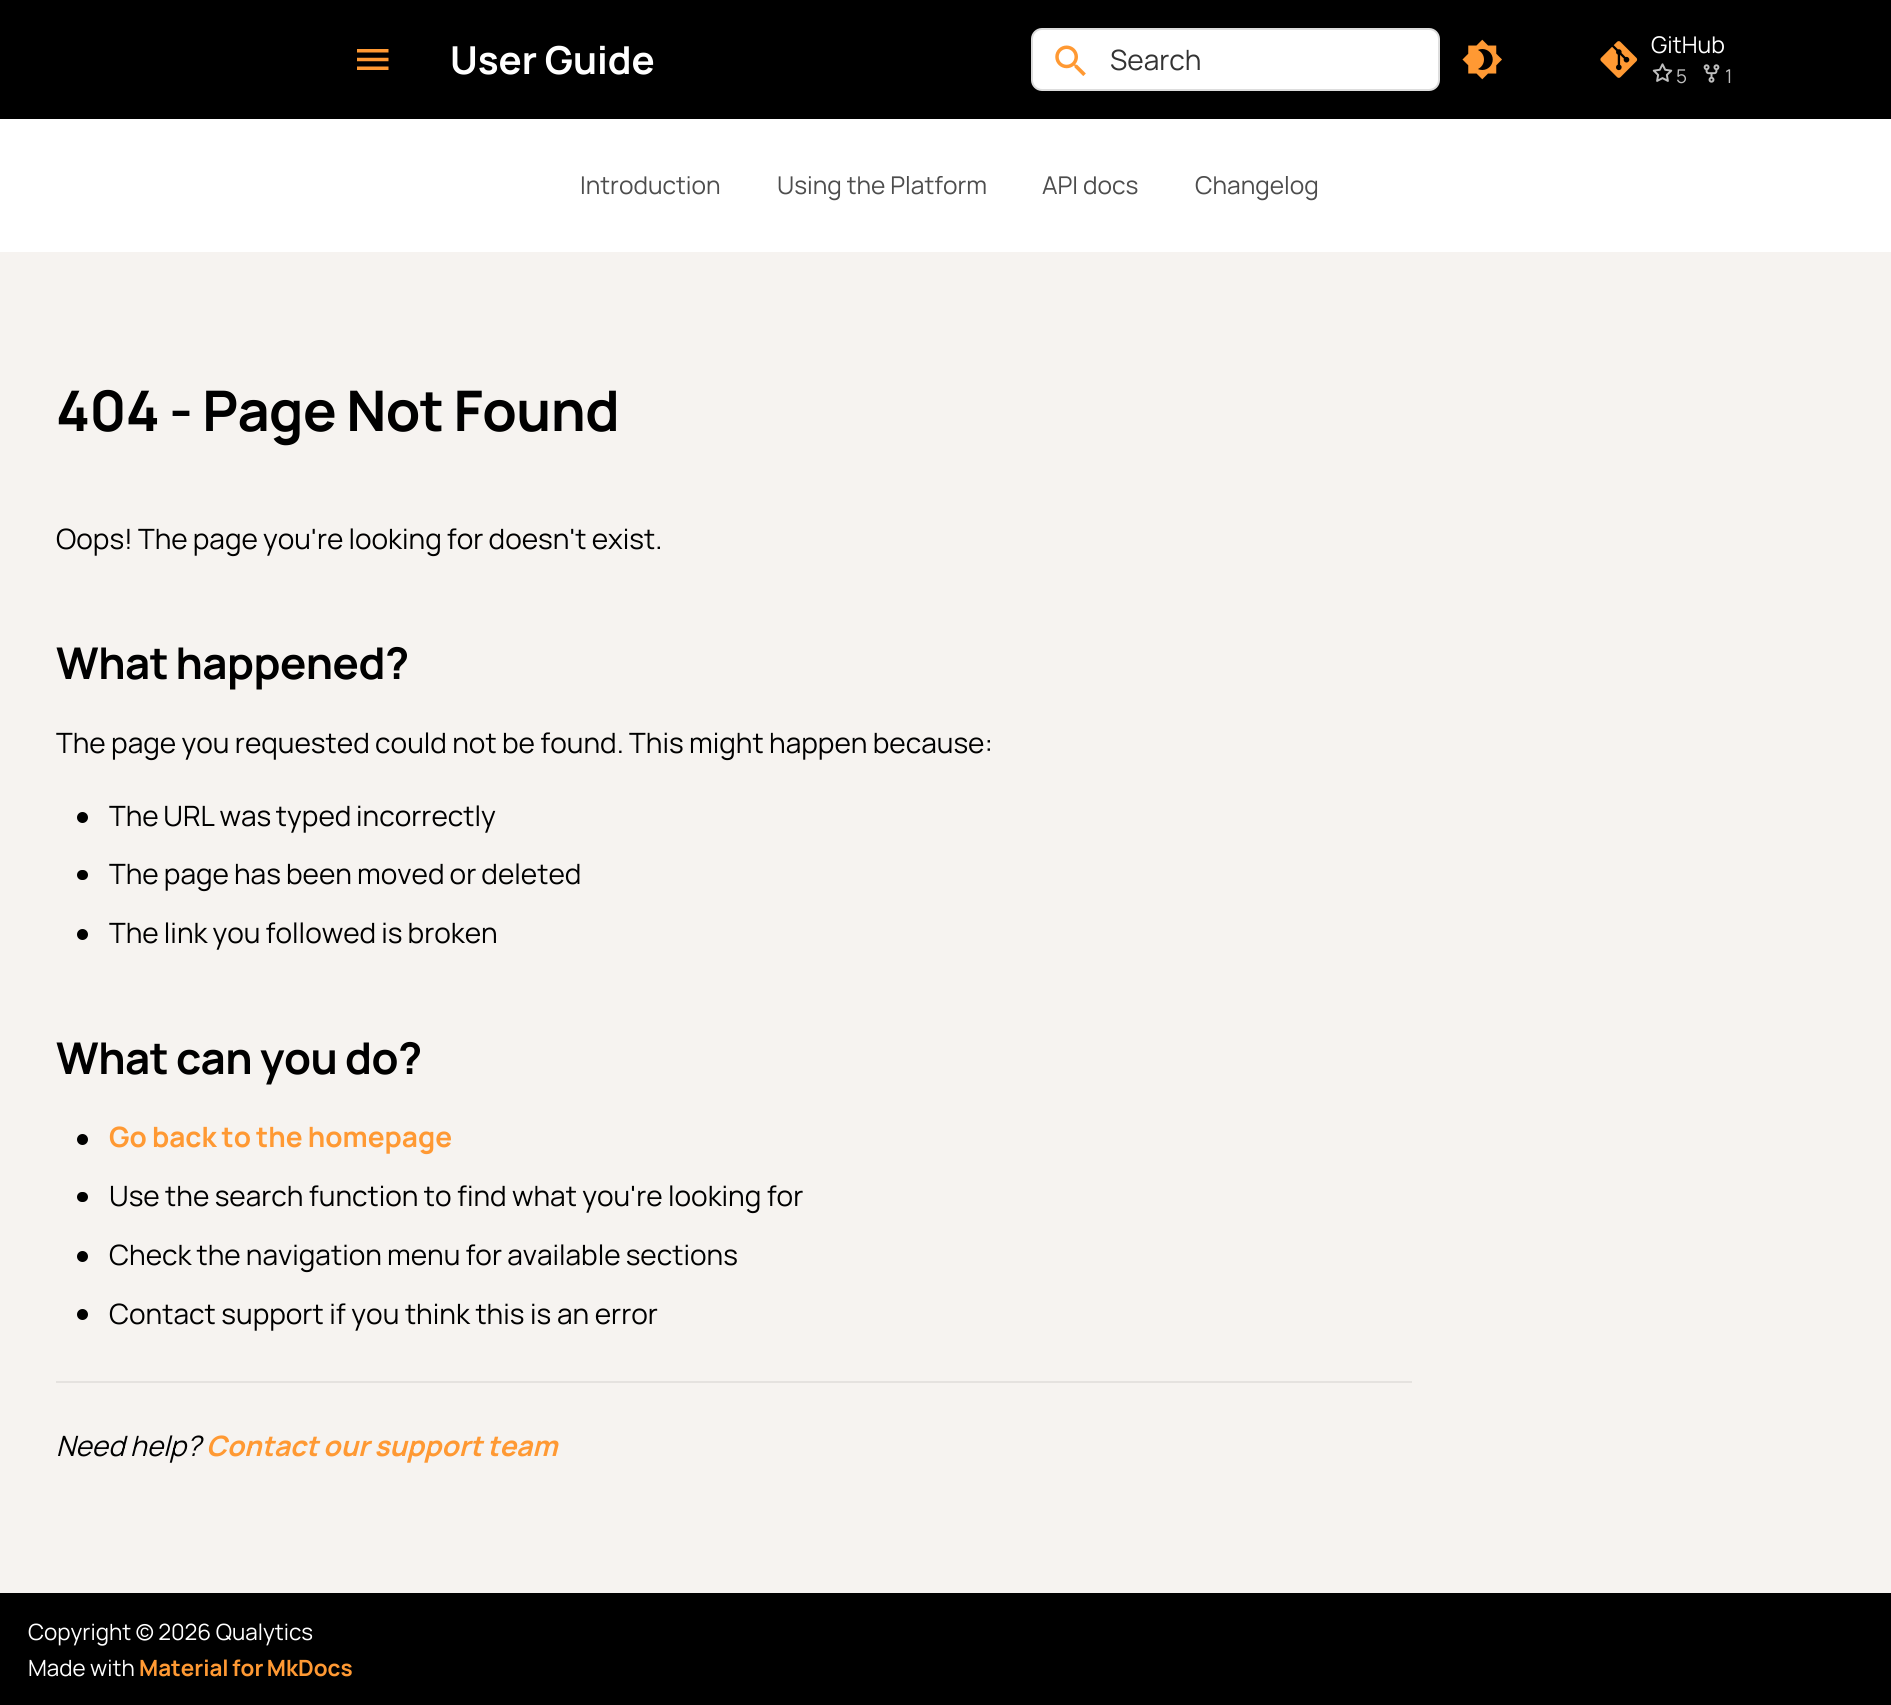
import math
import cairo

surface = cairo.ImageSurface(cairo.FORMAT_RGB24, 1891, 1705)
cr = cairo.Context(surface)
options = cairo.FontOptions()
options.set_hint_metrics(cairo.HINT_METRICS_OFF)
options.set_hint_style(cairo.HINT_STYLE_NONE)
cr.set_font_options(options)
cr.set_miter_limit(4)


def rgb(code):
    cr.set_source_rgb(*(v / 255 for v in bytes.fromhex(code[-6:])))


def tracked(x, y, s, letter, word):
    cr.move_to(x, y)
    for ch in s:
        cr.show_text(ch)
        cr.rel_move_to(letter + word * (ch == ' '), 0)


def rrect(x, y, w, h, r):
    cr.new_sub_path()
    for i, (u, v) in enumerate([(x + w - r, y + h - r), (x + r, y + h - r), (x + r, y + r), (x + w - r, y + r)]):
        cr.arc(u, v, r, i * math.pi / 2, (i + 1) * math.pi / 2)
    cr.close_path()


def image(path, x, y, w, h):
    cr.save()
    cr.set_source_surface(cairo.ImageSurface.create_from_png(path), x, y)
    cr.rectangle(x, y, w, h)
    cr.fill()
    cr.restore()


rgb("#f6f3f0")
cr.paint()
rgb("#000000")
cr.rectangle(0, 0, 1891, 119)
cr.fill()
image("img/1.png", 357, 49, 32, 21)
rgb("#ffffff")
rrect(1032, 29, 407, 61, 10)
cr.fill_preserve()
rgb("#dddddd")
cr.stroke()
image("img/2.png", 1055, 45, 31, 31)
image("img/3.png", 1462, 39, 40, 41)
image("img/4.png", 1600, 41, 38, 37)
image("img/5.png", 1652, 63, 21, 19)
image("img/6.png", 1703, 64, 17, 19)
rgb("#ffffff")
cr.rectangle(0, 119, 1891, 133)
cr.fill()
rgb("#000000")
cr.arc(82.5, 817.5, 5.5, 0, 2 * math.pi)
cr.fill()
rrect(77, 870, 11, 10, 5)
cr.fill()
cr.arc(82.5, 934.5, 5.5, 0, 2 * math.pi)
cr.fill()
cr.arc(82.5, 1139.5, 5.5, 0, 2 * math.pi)
cr.fill()
rrect(77, 1192, 11, 10, 5)
cr.fill()
cr.arc(82.5, 1256.5, 5.5, 0, 2 * math.pi)
cr.fill()
cr.arc(82.5, 1314.5, 5.5, 0, 2 * math.pi)
cr.fill()
rgb("#e5e2df")
cr.rectangle(56, 1381, 1356, 2)
cr.fill()
rgb("#000000")
cr.rectangle(0, 1593, 1891, 112)
cr.fill()
cr.select_font_face("Manrope", cairo.FONT_SLANT_NORMAL, cairo.FONT_WEIGHT_BOLD)
cr.set_font_size(38.5)
rgb("#ffffff")
cr.move_to(450, 74)
cr.show_text("User Guide")
cr.select_font_face("Manrope")
cr.set_font_size(28)
rgb("#333333")
cr.move_to(1110, 70)
cr.show_text("Search")
cr.set_font_size(23)
rgb("#ffffff")
cr.move_to(1651, 53)
cr.show_text("GitHub")
cr.set_font_size(19)
rgb("#bfbfbf")
cr.move_to(1676, 83)
cr.show_text("5")
cr.move_to(1725, 83)
cr.show_text("1")
cr.set_font_size(24.5)
rgb("#4d4d4d")
for x, y, s in [
    (580, 194, "Introduction"),
    (777, 194, "Using the Platform"),
    (1042, 194, "API docs"),
    (1195, 194, "Changelog"),
]:
    cr.move_to(x, y)
    cr.show_text(s)
cr.select_font_face("Manrope", cairo.FONT_SLANT_NORMAL, cairo.FONT_WEIGHT_BOLD)
cr.set_font_size(56)
rgb("#000000")
tracked(56, 431, "404 - Page Not Found", -0.6, -0.5)
cr.select_font_face("Manrope")
cr.set_font_size(28)
tracked(56, 549, "Oops! The page you're looking for doesn't exist.", 0, -0.5)
cr.select_font_face("Manrope", cairo.FONT_SLANT_NORMAL, cairo.FONT_WEIGHT_BOLD)
cr.set_font_size(43.75)
tracked(56, 679, "What happened?", -0.5, -1)
cr.select_font_face("Manrope")
cr.set_font_size(28)
tracked(56, 753, "The page you requested could not be found. This might happen because:", 0, -0.25)
tracked(109, 826, "The URL was typed incorrectly", 0, -1)
tracked(109, 884, "The page has been moved or deleted", 0, -0.5)
tracked(109, 943, "The link you followed is broken", 0, -0.5)
cr.select_font_face("Manrope", cairo.FONT_SLANT_NORMAL, cairo.FONT_WEIGHT_BOLD)
cr.set_font_size(43.75)
tracked(56, 1074, "What can you do?", -0.5, -0.5)
cr.set_font_size(28)
rgb("#ff9933")
tracked(109, 1147, "Go back to the homepage", 0, -0.5)
cr.select_font_face("Manrope")
rgb("#000000")
tracked(109, 1206, "Use the search function to find what you're looking for", 0, -0.25)
tracked(109, 1265, "Check the navigation menu for available sections", 0, -0.5)
cr.move_to(109, 1324)
cr.show_text("Contact support if you think this is an error")
cr.select_font_face("Manrope", cairo.FONT_SLANT_ITALIC)
cr.move_to(56, 1456)
cr.show_text("Need help?")
cr.select_font_face("Manrope", cairo.FONT_SLANT_ITALIC, cairo.FONT_WEIGHT_BOLD)
rgb("#ff9933")
tracked(206, 1456, "Contact our support team", 0, -0.5)
cr.select_font_face("Manrope")
cr.set_font_size(22.4)
rgb("#ffffff")
cr.move_to(28, 1640)
cr.show_text("Copyright © 2026 Qualytics")
cr.move_to(28, 1676)
cr.show_text("Made with")
cr.select_font_face("Manrope", cairo.FONT_SLANT_NORMAL, cairo.FONT_WEIGHT_BOLD)
rgb("#ff9933")
tracked(139, 1676, "Material for MkDocs", 0, -1)
surface.write_to_png("page.png")
